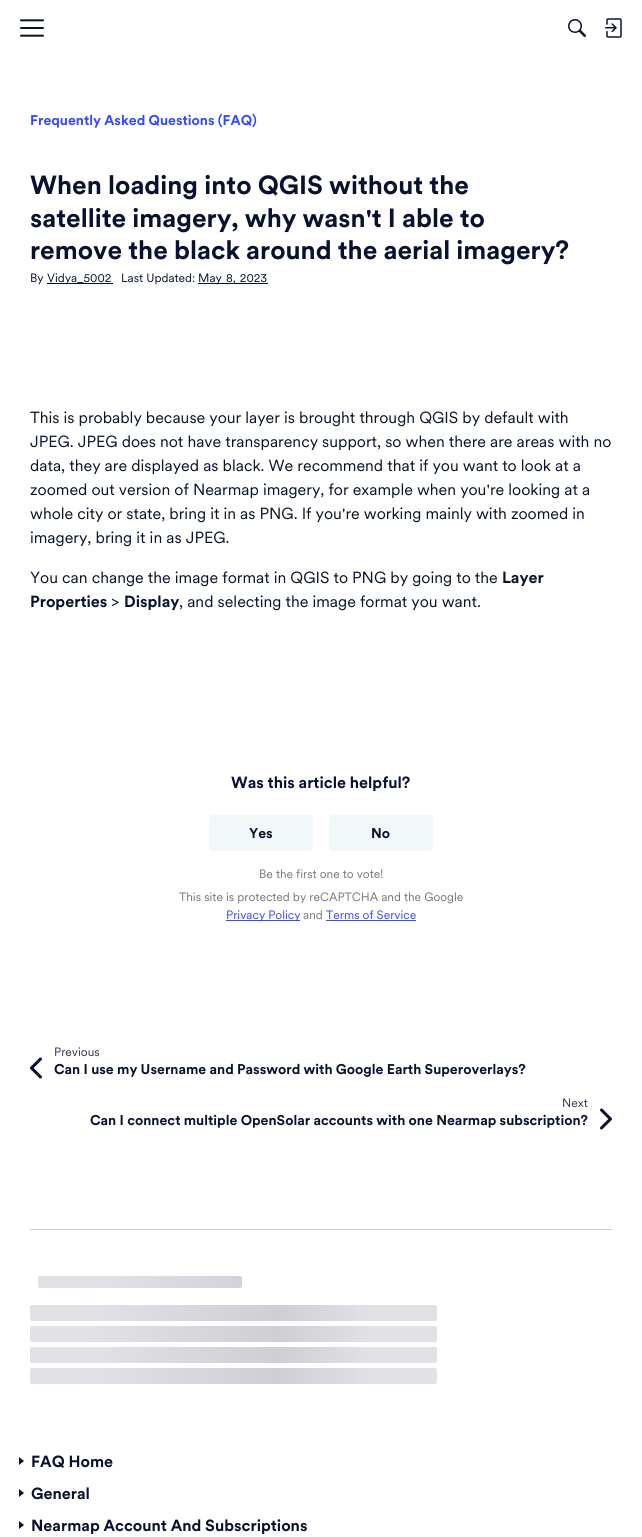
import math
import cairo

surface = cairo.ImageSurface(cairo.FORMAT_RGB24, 642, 1537)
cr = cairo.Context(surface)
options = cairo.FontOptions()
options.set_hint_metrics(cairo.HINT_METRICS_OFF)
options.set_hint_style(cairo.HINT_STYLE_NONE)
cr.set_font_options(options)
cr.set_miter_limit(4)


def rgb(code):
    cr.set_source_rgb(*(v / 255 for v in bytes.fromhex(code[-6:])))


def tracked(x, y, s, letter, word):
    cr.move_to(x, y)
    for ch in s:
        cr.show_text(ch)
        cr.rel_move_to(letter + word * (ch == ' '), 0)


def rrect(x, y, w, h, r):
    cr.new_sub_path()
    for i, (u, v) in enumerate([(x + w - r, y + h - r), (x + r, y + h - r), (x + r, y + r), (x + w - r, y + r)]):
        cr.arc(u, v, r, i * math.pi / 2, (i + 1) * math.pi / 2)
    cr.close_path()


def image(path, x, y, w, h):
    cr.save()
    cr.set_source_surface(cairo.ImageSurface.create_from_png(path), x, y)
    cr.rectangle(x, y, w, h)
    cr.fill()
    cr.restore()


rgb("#ffffff")
cr.paint()
image("img/1.png", 20, 19, 24, 18)
image("img/2.png", 568, 19, 18, 18)
image("img/3.png", 605, 18, 17, 20)
rgb("#08112e")
cr.rectangle(47, 283, 66, 1)
cr.fill()
cr.rectangle(198, 283, 70, 1)
cr.fill()
rgb("#f2f8f9")
rrect(209.5, 815.5, 103, 35, 3.5)
cr.fill_preserve()
cr.set_line_width(1)
cr.stroke()
rrect(329.5, 815.5, 103, 35, 3.5)
cr.fill_preserve()
cr.stroke()
rgb("#3448ff")
cr.rectangle(226, 920, 74, 1)
cr.fill()
cr.rectangle(326, 920, 90, 1)
cr.fill()
image("img/4.png", 30, 1057, 12, 22)
image("img/5.png", 600, 1108, 12, 22)
rgb("#cecfd5")
cr.rectangle(30, 1229, 582, 1)
cr.fill()
gradient = cairo.LinearGradient(38, 1282, 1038, 1282)
gradient.add_color_stop_rgba(0.06, 0.882, 0.886, 0.902, 1)
gradient.add_color_stop_rgba(0.25, 0.808, 0.812, 0.835, 1)
gradient.add_color_stop_rgba(0.34, 0.882, 0.886, 0.902, 1)
cr.set_source(gradient)
rrect(38, 1276, 204, 12, 2)
cr.fill()
gradient = cairo.LinearGradient(30, 1313, 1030, 1313)
gradient.add_color_stop_rgba(0.06, 0.882, 0.886, 0.902, 1)
gradient.add_color_stop_rgba(0.25, 0.808, 0.812, 0.835, 1)
gradient.add_color_stop_rgba(0.34, 0.882, 0.886, 0.902, 1)
cr.set_source(gradient)
rrect(30, 1305, 407, 16, 2)
cr.fill()
gradient = cairo.LinearGradient(30, 1334, 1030, 1334)
gradient.add_color_stop_rgba(0.06, 0.882, 0.886, 0.902, 1)
gradient.add_color_stop_rgba(0.25, 0.808, 0.812, 0.835, 1)
gradient.add_color_stop_rgba(0.34, 0.882, 0.886, 0.902, 1)
cr.set_source(gradient)
rrect(30, 1326, 407, 16, 2)
cr.fill()
gradient = cairo.LinearGradient(30, 1355, 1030, 1355)
gradient.add_color_stop_rgba(0.06, 0.882, 0.886, 0.902, 1)
gradient.add_color_stop_rgba(0.25, 0.808, 0.812, 0.835, 1)
gradient.add_color_stop_rgba(0.34, 0.882, 0.886, 0.902, 1)
cr.set_source(gradient)
rrect(30, 1347, 407, 16, 2)
cr.fill()
gradient = cairo.LinearGradient(30, 1376, 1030, 1376)
gradient.add_color_stop_rgba(0.06, 0.882, 0.886, 0.902, 1)
gradient.add_color_stop_rgba(0.25, 0.808, 0.812, 0.835, 1)
gradient.add_color_stop_rgba(0.34, 0.882, 0.886, 0.902, 1)
cr.set_source(gradient)
rrect(30, 1368, 407, 16, 2)
cr.fill()
rgb("#08112e")
cr.new_path()
cr.move_to(19, 1465)
cr.line_to(19, 1457)
cr.line_to(24, 1461)
cr.close_path()
cr.fill()
cr.new_path()
cr.move_to(19, 1497)
cr.line_to(19, 1489)
cr.line_to(24, 1493)
cr.close_path()
cr.fill()
cr.new_path()
cr.move_to(19, 1529)
cr.line_to(19, 1521)
cr.line_to(24, 1525)
cr.close_path()
cr.fill()
cr.select_font_face("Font", cairo.FONT_SLANT_NORMAL, cairo.FONT_WEIGHT_BOLD)
cr.set_font_size(14)
rgb("#3448ff")
cr.move_to(30, 125)
cr.show_text("Frequently Asked Questions (FAQ)")
cr.set_font_size(26)
rgb("#08112e")
for x, y, s in [
    (30, 194, "When loading into QGIS without the"),
    (30, 227, "satellite imagery, why wasn't I able to"),
    (30, 259, "remove the black around the aerial imagery?"),
]:
    cr.move_to(x, y)
    cr.show_text(s)
cr.select_font_face("Font")
cr.set_font_size(12)
for x, y, s in [
    (30, 282, "By"),
    (47, 282, "Vidya_5002"),
    (121, 282, "Last Updated:"),
]:
    cr.move_to(x, y)
    cr.show_text(s)
tracked(198, 282, "May 8, 2023", 0, 1)
cr.set_font_size(16)
for x, y, s in [
    (30, 423, "This is probably because your layer is brought through QGIS by default with"),
    (30, 447, "JPEG. JPEG does not have transparency support, so when there are areas with no"),
    (30, 471, "data, they are displayed as black. We recommend that if you want to look at a"),
    (30, 495, "zoomed out version of Nearmap imagery, for example when you're looking at a"),
    (30, 519, "whole city or state, bring it in as PNG. If you're working mainly with zoomed in"),
    (30, 543, "imagery, bring it in as JPEG."),
    (30, 583, "You can change the image format in QGIS to PNG by going to the"),
]:
    cr.move_to(x, y)
    cr.show_text(s)
cr.select_font_face("Font", cairo.FONT_SLANT_NORMAL, cairo.FONT_WEIGHT_BOLD)
cr.move_to(502, 583)
cr.show_text("Layer")
cr.move_to(30, 607)
cr.show_text("Properties")
cr.select_font_face("Font")
cr.move_to(111, 607)
cr.show_text(">")
cr.select_font_face("Font", cairo.FONT_SLANT_NORMAL, cairo.FONT_WEIGHT_BOLD)
cr.move_to(124, 607)
cr.show_text("Display")
cr.select_font_face("Font")
cr.move_to(179, 607)
cr.show_text(", and selecting the image format you want.")
cr.select_font_face("Font", cairo.FONT_SLANT_NORMAL, cairo.FONT_WEIGHT_BOLD)
cr.move_to(231, 788)
cr.show_text("Was this article helpful?")
cr.set_font_size(14)
cr.move_to(249, 838)
cr.show_text("Yes")
cr.move_to(371, 838)
cr.show_text("No")
cr.select_font_face("Font")
cr.set_font_size(12)
rgb("#767676")
cr.move_to(259, 878)
cr.show_text("Be the first one to vote!")
cr.move_to(179, 901)
cr.show_text("This site is protected by reCAPTCHA and the Google")
rgb("#3448ff")
cr.move_to(226, 919)
cr.show_text("Privacy Policy")
rgb("#767676")
cr.move_to(303, 919)
cr.show_text("and")
rgb("#3448ff")
cr.move_to(326, 919)
cr.show_text("Terms of Service")
rgb("#2d354d")
cr.move_to(54, 1056)
cr.show_text("Previous")
cr.select_font_face("Font", cairo.FONT_SLANT_NORMAL, cairo.FONT_WEIGHT_BOLD)
cr.set_font_size(14)
rgb("#08112e")
cr.move_to(54, 1074)
cr.show_text("Can I use my Username and Password with Google Earth Superoverlays?")
cr.select_font_face("Font")
cr.set_font_size(12)
rgb("#2d354d")
cr.move_to(562, 1107)
cr.show_text("Next")
cr.select_font_face("Font", cairo.FONT_SLANT_NORMAL, cairo.FONT_WEIGHT_BOLD)
cr.set_font_size(14)
rgb("#08112e")
cr.move_to(90, 1125)
cr.show_text("Can I connect multiple OpenSolar accounts with one Nearmap subscription?")
cr.set_font_size(16)
for x, y, s in [
    (31, 1467, "FAQ Home"),
    (31, 1499, "General"),
    (31, 1531, "Nearmap Account And Subscriptions"),
]:
    cr.move_to(x, y)
    cr.show_text(s)
surface.write_to_png("page.png")
